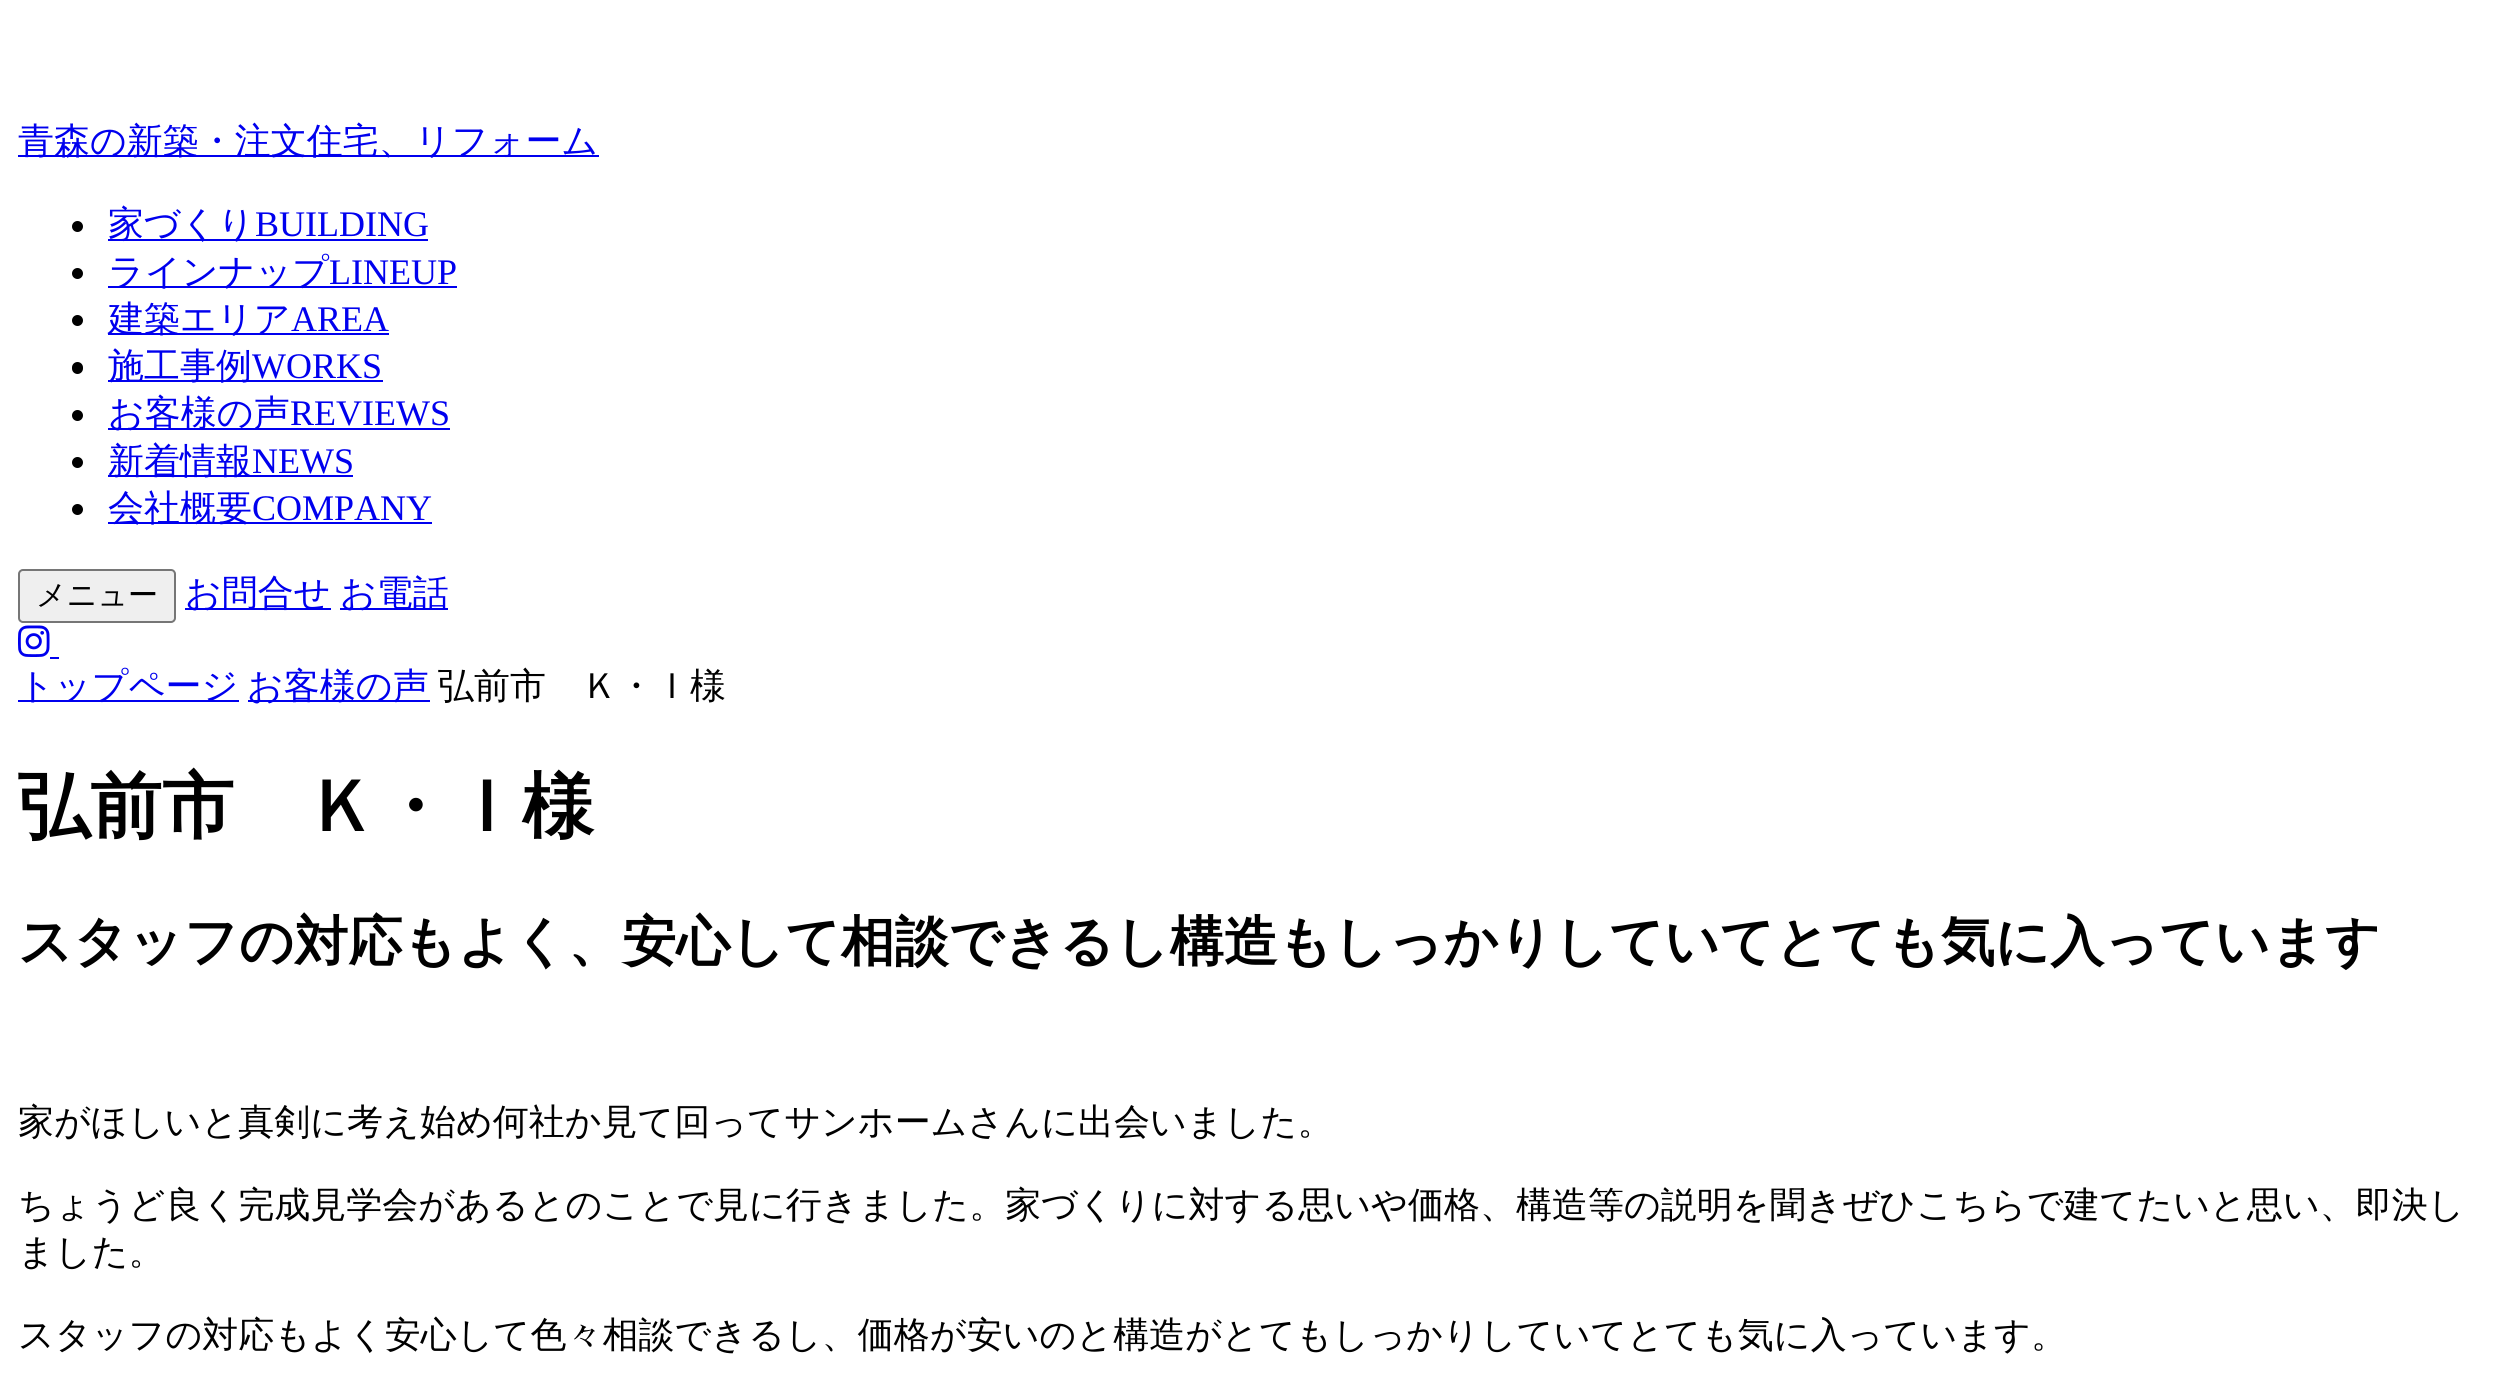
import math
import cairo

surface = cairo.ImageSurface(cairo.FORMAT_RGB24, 2506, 1383)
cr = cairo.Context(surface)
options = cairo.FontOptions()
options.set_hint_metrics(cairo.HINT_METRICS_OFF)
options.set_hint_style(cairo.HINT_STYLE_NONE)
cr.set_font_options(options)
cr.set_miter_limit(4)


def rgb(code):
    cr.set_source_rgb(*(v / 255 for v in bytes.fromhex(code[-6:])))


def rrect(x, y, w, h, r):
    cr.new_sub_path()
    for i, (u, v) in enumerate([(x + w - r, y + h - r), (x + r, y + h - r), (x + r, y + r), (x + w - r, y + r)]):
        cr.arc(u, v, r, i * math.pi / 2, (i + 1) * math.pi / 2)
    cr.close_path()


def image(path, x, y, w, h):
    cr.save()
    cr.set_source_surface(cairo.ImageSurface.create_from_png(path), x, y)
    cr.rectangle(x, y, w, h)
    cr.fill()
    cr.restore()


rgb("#ffffff")
cr.paint()
rgb("#0000ee")
cr.rectangle(18, 155, 581, 2)
cr.fill()
rgb("#000000")
cr.arc(77.5, 226.5, 5.5, 0, 2 * math.pi)
cr.fill()
rgb("#0000ee")
cr.rectangle(108, 239, 320, 2)
cr.fill()
rgb("#000000")
cr.arc(77.5, 273.5, 5.5, 0, 2 * math.pi)
cr.fill()
rgb("#0000ee")
cr.rectangle(108, 286, 221, 2)
cr.fill()
cr.rectangle(329, 286, 128, 2)
cr.fill()
rgb("#000000")
cr.arc(77.5, 320.5, 5.5, 0, 2 * math.pi)
cr.fill()
rgb("#0000ee")
cr.rectangle(108, 333, 281, 2)
cr.fill()
rgb("#000000")
rrect(72, 362, 11, 12, 5.5)
cr.fill()
rgb("#0000ee")
cr.rectangle(108, 380, 275, 2)
cr.fill()
rgb("#000000")
cr.arc(77.5, 415.5, 5.5, 0, 2 * math.pi)
cr.fill()
rgb("#0000ee")
cr.rectangle(108, 428, 342, 2)
cr.fill()
rgb("#000000")
cr.arc(77.5, 462.5, 5.5, 0, 2 * math.pi)
cr.fill()
rgb("#0000ee")
cr.rectangle(108, 475, 245, 2)
cr.fill()
rgb("#000000")
cr.arc(77.5, 509.5, 5.5, 0, 2 * math.pi)
cr.fill()
rgb("#0000ee")
cr.rectangle(108, 522, 324, 2)
cr.fill()
rgb("#efefef")
rrect(19, 570, 156, 52, 4)
cr.fill_preserve()
rgb("#767676")
cr.stroke()
rgb("#0000ee")
cr.rectangle(185, 608, 146, 2)
cr.fill()
cr.rectangle(340, 608, 108, 2)
cr.fill()
image("img/1.png", 18, 625, 32, 32)
for x, y, w, h, color in [
    (50, 657, 9, 2, "#0000ee"),
    (18, 700, 221, 2, "#0000ee"),
    (248, 700, 182, 2, "#0000ee"),
]:
    rgb(color)
    cr.rectangle(x, y, w, h)
    cr.fill()
cr.select_font_face("WenQuanYi Zen Hei Medium")
cr.set_font_size(36)
cr.move_to(18, 153)
cr.show_text("青森の新築・注文住宅、リフォーム")
cr.move_to(108, 236)
cr.show_text("家づくり")
cr.select_font_face("Liberation Serif")
cr.move_to(255, 236)
cr.show_text("BUILDING")
cr.select_font_face("WenQuanYi Zen Hei Medium")
cr.move_to(108, 284)
cr.show_text("ラインナップ")
cr.select_font_face("Liberation Serif")
cr.move_to(329, 284)
cr.show_text("LINEUP")
cr.select_font_face("WenQuanYi Zen Hei Medium")
cr.move_to(108, 331)
cr.show_text("建築エリア")
cr.select_font_face("Liberation Serif")
cr.move_to(291, 331)
cr.show_text("AREA")
cr.select_font_face("WenQuanYi Zen Hei Medium")
cr.move_to(108, 378)
cr.show_text("施工事例")
cr.select_font_face("Liberation Serif")
cr.move_to(252, 378)
cr.show_text("WORKS")
cr.select_font_face("WenQuanYi Zen Hei Medium")
cr.move_to(108, 425)
cr.show_text("お客様の声")
cr.select_font_face("Liberation Serif")
cr.move_to(290, 425)
cr.show_text("REVIEWS")
cr.select_font_face("WenQuanYi Zen Hei Medium")
cr.move_to(108, 473)
cr.show_text("新着情報")
cr.select_font_face("Liberation Serif")
cr.move_to(252, 473)
cr.show_text("NEWS")
cr.select_font_face("WenQuanYi Zen Hei Medium")
cr.move_to(108, 520)
cr.show_text("会社概要")
cr.select_font_face("Liberation Serif")
cr.move_to(252, 520)
cr.show_text("COMPANY")
cr.select_font_face("WenQuanYi Zen Hei Medium")
cr.set_font_size(30)
rgb("#000000")
cr.move_to(36, 605)
cr.show_text("メニュー")
cr.set_font_size(36)
rgb("#0000ee")
for x, y, s in [
    (185, 605, "お問合せ"),
    (340, 605, "お電話"),
    (18, 698, "トップページ"),
    (247, 698, "お客様の声"),
]:
    cr.move_to(x, y)
    cr.show_text(s)
rgb("#000000")
cr.move_to(438, 698)
cr.show_text("弘前市　Ｋ・Ｉ様")
cr.select_font_face("WenQuanYi Zen Hei", cairo.FONT_SLANT_NORMAL, cairo.FONT_WEIGHT_BOLD)
cr.set_font_size(72)
cr.move_to(18, 831)
cr.show_text("弘前市　Ｋ・Ｉ様")
cr.set_font_size(54)
cr.move_to(18, 960)
cr.show_text("スタッフの対応もよく、安心して相談できるし構造もしっかりしていてとても気に入っています")
cr.select_font_face("WenQuanYi Zen Hei Medium")
cr.set_font_size(36)
for x, y, s in [
    (18, 1134, "家がほしいと真剣に考え始め何社か見て回ってサンホームさんに出会いました。"),
    (18, 1217, "ちょうど良く完成見学会があるとのことで見に行きました。家づくりに対する思いや価格、構造等の説明を聞きぜひこちらで建てたいと思い、即決し"),
    (18, 1264, "ました。"),
    (18, 1347, "スタッフの対応もよく安心して色々相談できるし、価格が安いのと構造がとてもしっかりしていてとても気に入っています。"),
]:
    cr.move_to(x, y)
    cr.show_text(s)
surface.write_to_png("page.png")
